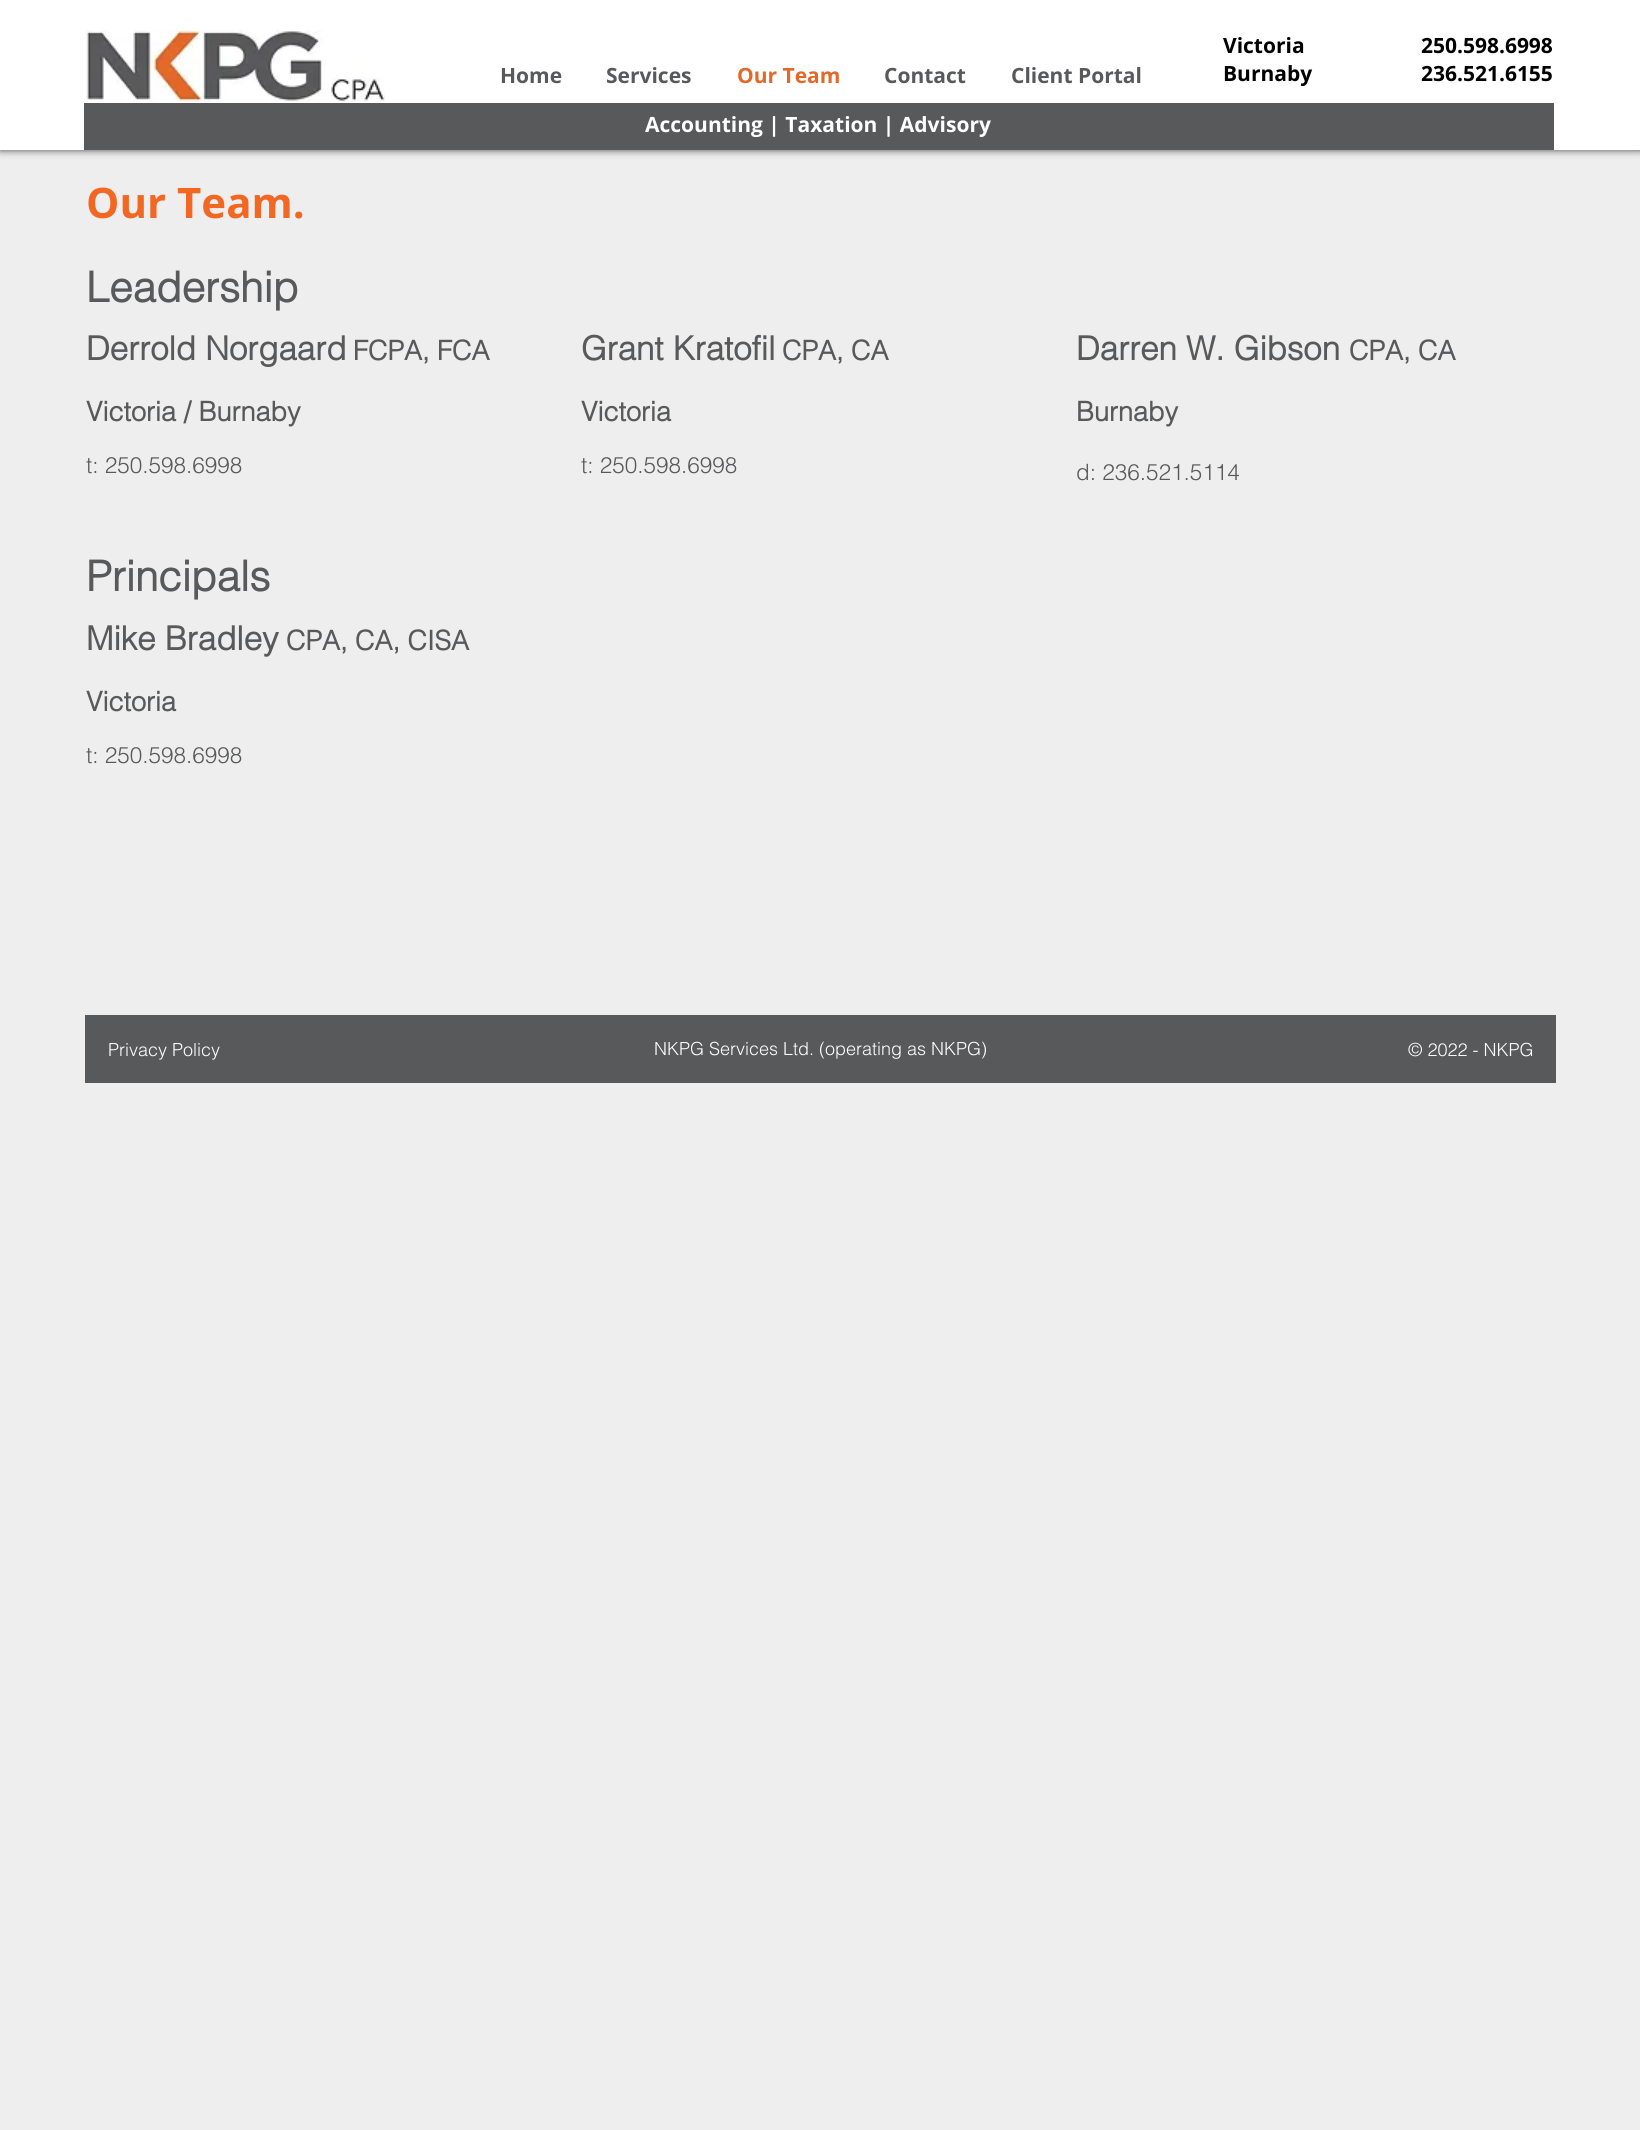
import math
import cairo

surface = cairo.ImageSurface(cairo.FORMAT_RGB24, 1640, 2130)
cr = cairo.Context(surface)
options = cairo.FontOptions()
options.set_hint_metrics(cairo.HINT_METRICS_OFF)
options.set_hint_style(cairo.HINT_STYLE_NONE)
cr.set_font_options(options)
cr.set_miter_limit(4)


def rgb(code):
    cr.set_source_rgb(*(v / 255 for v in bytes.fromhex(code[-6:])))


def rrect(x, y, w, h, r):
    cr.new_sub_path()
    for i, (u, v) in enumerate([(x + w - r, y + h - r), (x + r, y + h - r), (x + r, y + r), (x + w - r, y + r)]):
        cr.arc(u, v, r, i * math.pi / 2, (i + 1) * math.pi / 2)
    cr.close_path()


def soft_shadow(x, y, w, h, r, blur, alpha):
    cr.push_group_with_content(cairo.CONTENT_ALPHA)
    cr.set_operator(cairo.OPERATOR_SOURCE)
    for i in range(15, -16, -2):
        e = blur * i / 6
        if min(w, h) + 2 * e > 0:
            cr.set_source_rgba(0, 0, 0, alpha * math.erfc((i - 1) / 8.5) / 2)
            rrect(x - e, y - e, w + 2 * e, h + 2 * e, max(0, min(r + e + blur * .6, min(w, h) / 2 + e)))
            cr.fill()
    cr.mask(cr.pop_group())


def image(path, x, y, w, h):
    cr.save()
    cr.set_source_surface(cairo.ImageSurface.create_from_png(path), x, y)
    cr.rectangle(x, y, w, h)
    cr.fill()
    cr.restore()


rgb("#eeeeee")
cr.paint()
rgb("#000000")
soft_shadow(0, 0, 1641, 150, 0, 4, 0.7)
rgb("#ffffff")
cr.rectangle(0, 0, 1640, 150)
cr.fill()
image("img/1.png", 86, 30, 299, 73)
rgb("#58595b")
cr.rectangle(84, 103, 1470, 47)
cr.fill()
cr.rectangle(85, 1015, 1471, 68)
cr.fill()
cr.select_font_face("Open Sans", cairo.FONT_SLANT_NORMAL, cairo.FONT_WEIGHT_BOLD)
cr.set_font_size(21)
cr.move_to(500, 83)
cr.show_text("Home")
cr.move_to(606, 83)
cr.show_text("Services")
rgb("#e46827")
cr.move_to(737, 83)
cr.show_text("Our Team")
rgb("#58595b")
cr.move_to(884, 83)
cr.show_text("Contact")
cr.move_to(1011, 83)
cr.show_text("Client Portal")
rgb("#000000")
for x, y, s in [
    (1223, 53, "Victoria"),
    (1223, 81, "Burnaby"),
    (1421, 53, "250.598.6998"),
    (1421, 81, "236.521.6155"),
]:
    cr.move_to(x, y)
    cr.show_text(s)
rgb("#ffffff")
cr.move_to(645, 132)
cr.show_text("Accounting | Taxation | Advisory")
cr.set_font_size(42)
rgb("#f26722")
cr.move_to(86, 218)
cr.show_text("Our Team.")
cr.select_font_face("helvetica", cairo.FONT_SLANT_NORMAL, cairo.FONT_WEIGHT_BOLD)
rgb("#58595b")
cr.move_to(86, 302)
cr.show_text("Leadership")
cr.set_font_size(33)
cr.move_to(86, 360)
cr.show_text("Derrold Norgaard")
cr.set_font_size(27)
cr.move_to(353, 360)
cr.show_text("FCPA, FCA")
cr.move_to(86, 421)
cr.show_text("Victoria / Burnaby")
cr.select_font_face("helvetica Light")
cr.set_font_size(22.5)
cr.move_to(86, 473)
cr.show_text("t: 250.598.6998")
cr.select_font_face("helvetica", cairo.FONT_SLANT_NORMAL, cairo.FONT_WEIGHT_BOLD)
cr.set_font_size(33)
cr.move_to(581, 360)
cr.show_text("Grant Kratofil")
cr.set_font_size(27)
cr.move_to(782, 360)
cr.show_text("CPA, CA")
cr.move_to(581, 421)
cr.show_text("Victoria")
cr.select_font_face("helvetica Light")
cr.set_font_size(22.5)
cr.move_to(581, 473)
cr.show_text("t: 250.598.6998")
cr.select_font_face("helvetica", cairo.FONT_SLANT_NORMAL, cairo.FONT_WEIGHT_BOLD)
cr.set_font_size(33)
cr.move_to(1076, 360)
cr.show_text("Darren W. Gibson")
cr.set_font_size(27)
cr.move_to(1349, 360)
cr.show_text("CPA, CA")
cr.move_to(1076, 421)
cr.show_text("Burnaby")
cr.select_font_face("helvetica Light")
cr.set_font_size(22.5)
cr.move_to(1076, 480)
cr.show_text("d: 236.521.5114")
cr.select_font_face("helvetica", cairo.FONT_SLANT_NORMAL, cairo.FONT_WEIGHT_BOLD)
cr.set_font_size(42)
cr.move_to(86, 591)
cr.show_text("Principals")
cr.set_font_size(33)
cr.move_to(86, 650)
cr.show_text("Mike Bradley")
cr.set_font_size(27)
cr.move_to(286, 650)
cr.show_text("CPA, CA, CISA")
cr.move_to(86, 711)
cr.show_text("Victoria")
cr.select_font_face("helvetica Light")
cr.set_font_size(22.5)
cr.move_to(86, 763)
cr.show_text("t: 250.598.6998")
cr.set_font_size(18)
rgb("#ffffff")
for x, y, s in [
    (108, 1056, "Privacy Policy"),
    (654, 1055, "NKPG Services Ltd. (operating as NKPG)"),
    (1408, 1056, "© 2022 - NKPG"),
]:
    cr.move_to(x, y)
    cr.show_text(s)
surface.write_to_png("page.png")
